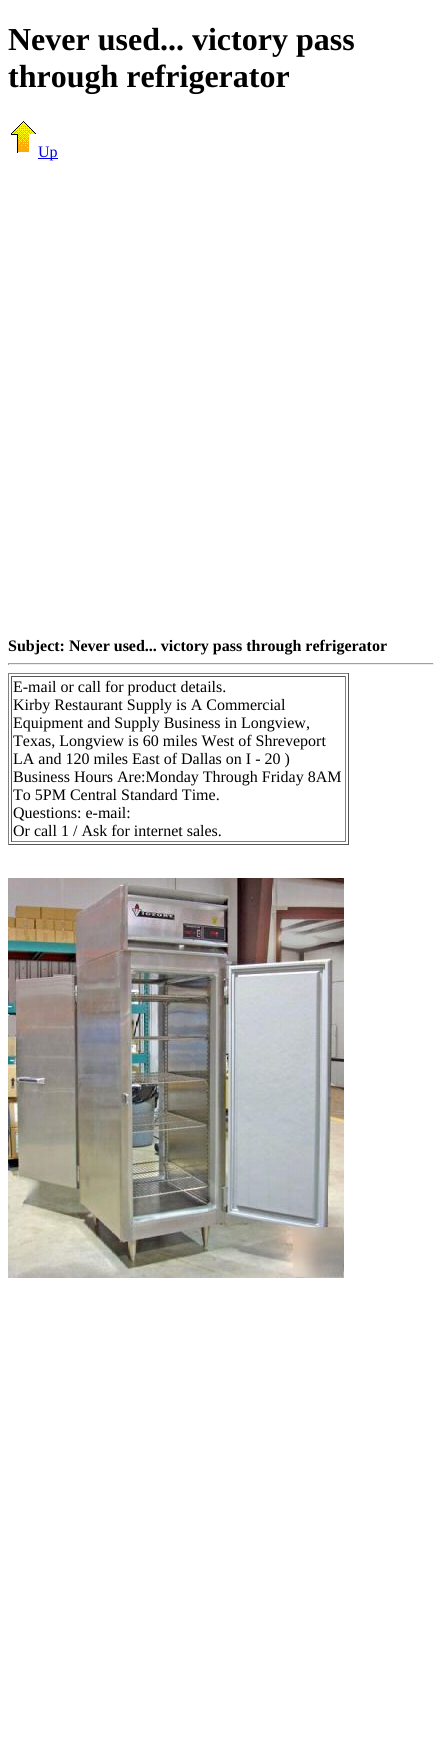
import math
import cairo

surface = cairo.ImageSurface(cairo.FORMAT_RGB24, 442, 1764)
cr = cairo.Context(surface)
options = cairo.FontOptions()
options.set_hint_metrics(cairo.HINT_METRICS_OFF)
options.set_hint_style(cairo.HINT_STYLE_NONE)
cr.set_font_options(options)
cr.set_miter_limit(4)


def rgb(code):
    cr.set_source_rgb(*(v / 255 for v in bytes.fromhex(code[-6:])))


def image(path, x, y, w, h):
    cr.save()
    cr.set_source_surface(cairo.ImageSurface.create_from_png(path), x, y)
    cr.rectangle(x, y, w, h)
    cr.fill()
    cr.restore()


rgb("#ffffff")
cr.paint()
image("img/1.png", 11, 121, 25, 32)
for x, y, w, h, color in [
    (38, 158, 20, 1, "#0000ee"),
    (8, 663, 426, 1, "#9f9f9f"),
    (433, 663, 1, 2, "#eeeeee"),
    (8, 664, 426, 1, "#eeeeee"),
    (8, 663, 1, 2, "#9f9f9f"),
    (8, 673, 341, 1, "#808080"),
    (348, 673, 1, 172, "#555555"),
    (8, 844, 341, 1, "#555555"),
    (8, 673, 1, 172, "#808080"),
    (11, 676, 335, 1, "#555555"),
    (345, 676, 1, 166, "#808080"),
    (11, 841, 335, 1, "#808080"),
    (11, 676, 1, 166, "#555555"),
]:
    rgb(color)
    cr.rectangle(x, y, w, h)
    cr.fill()
image("img/2.png", 8, 878, 336, 400)
cr.select_font_face("Liberation Serif", cairo.FONT_SLANT_NORMAL, cairo.FONT_WEIGHT_BOLD)
cr.set_font_size(32)
rgb("#000000")
cr.move_to(8, 50)
cr.show_text("Never used... victory pass")
cr.move_to(8, 87)
cr.show_text("through refrigerator")
cr.select_font_face("Liberation Serif")
cr.set_font_size(16)
rgb("#0000ee")
cr.move_to(38, 157)
cr.show_text("Up")
cr.select_font_face("Liberation Serif", cairo.FONT_SLANT_NORMAL, cairo.FONT_WEIGHT_BOLD)
rgb("#000000")
cr.move_to(8, 651)
cr.show_text("Subject: Never used... victory pass through refrigerator")
cr.select_font_face("Liberation Serif")
for x, y, s in [
    (13, 692, "E-mail or call for product details."),
    (13, 710, "Kirby Restaurant Supply is A Commercial"),
    (13, 728, "Equipment and Supply Business in Longview,"),
    (13, 746, "Texas, Longview is 60 miles West of Shreveport"),
    (13, 764, "LA and 120 miles East of Dallas on I - 20 )"),
    (13, 782, "Business Hours Are:Monday Through Friday 8AM"),
    (13, 800, "To 5PM Central Standard Time."),
    (13, 818, "Questions: e-mail:"),
    (13, 836, "Or call 1 / Ask for internet sales."),
]:
    cr.move_to(x, y)
    cr.show_text(s)
surface.write_to_png("page.png")
